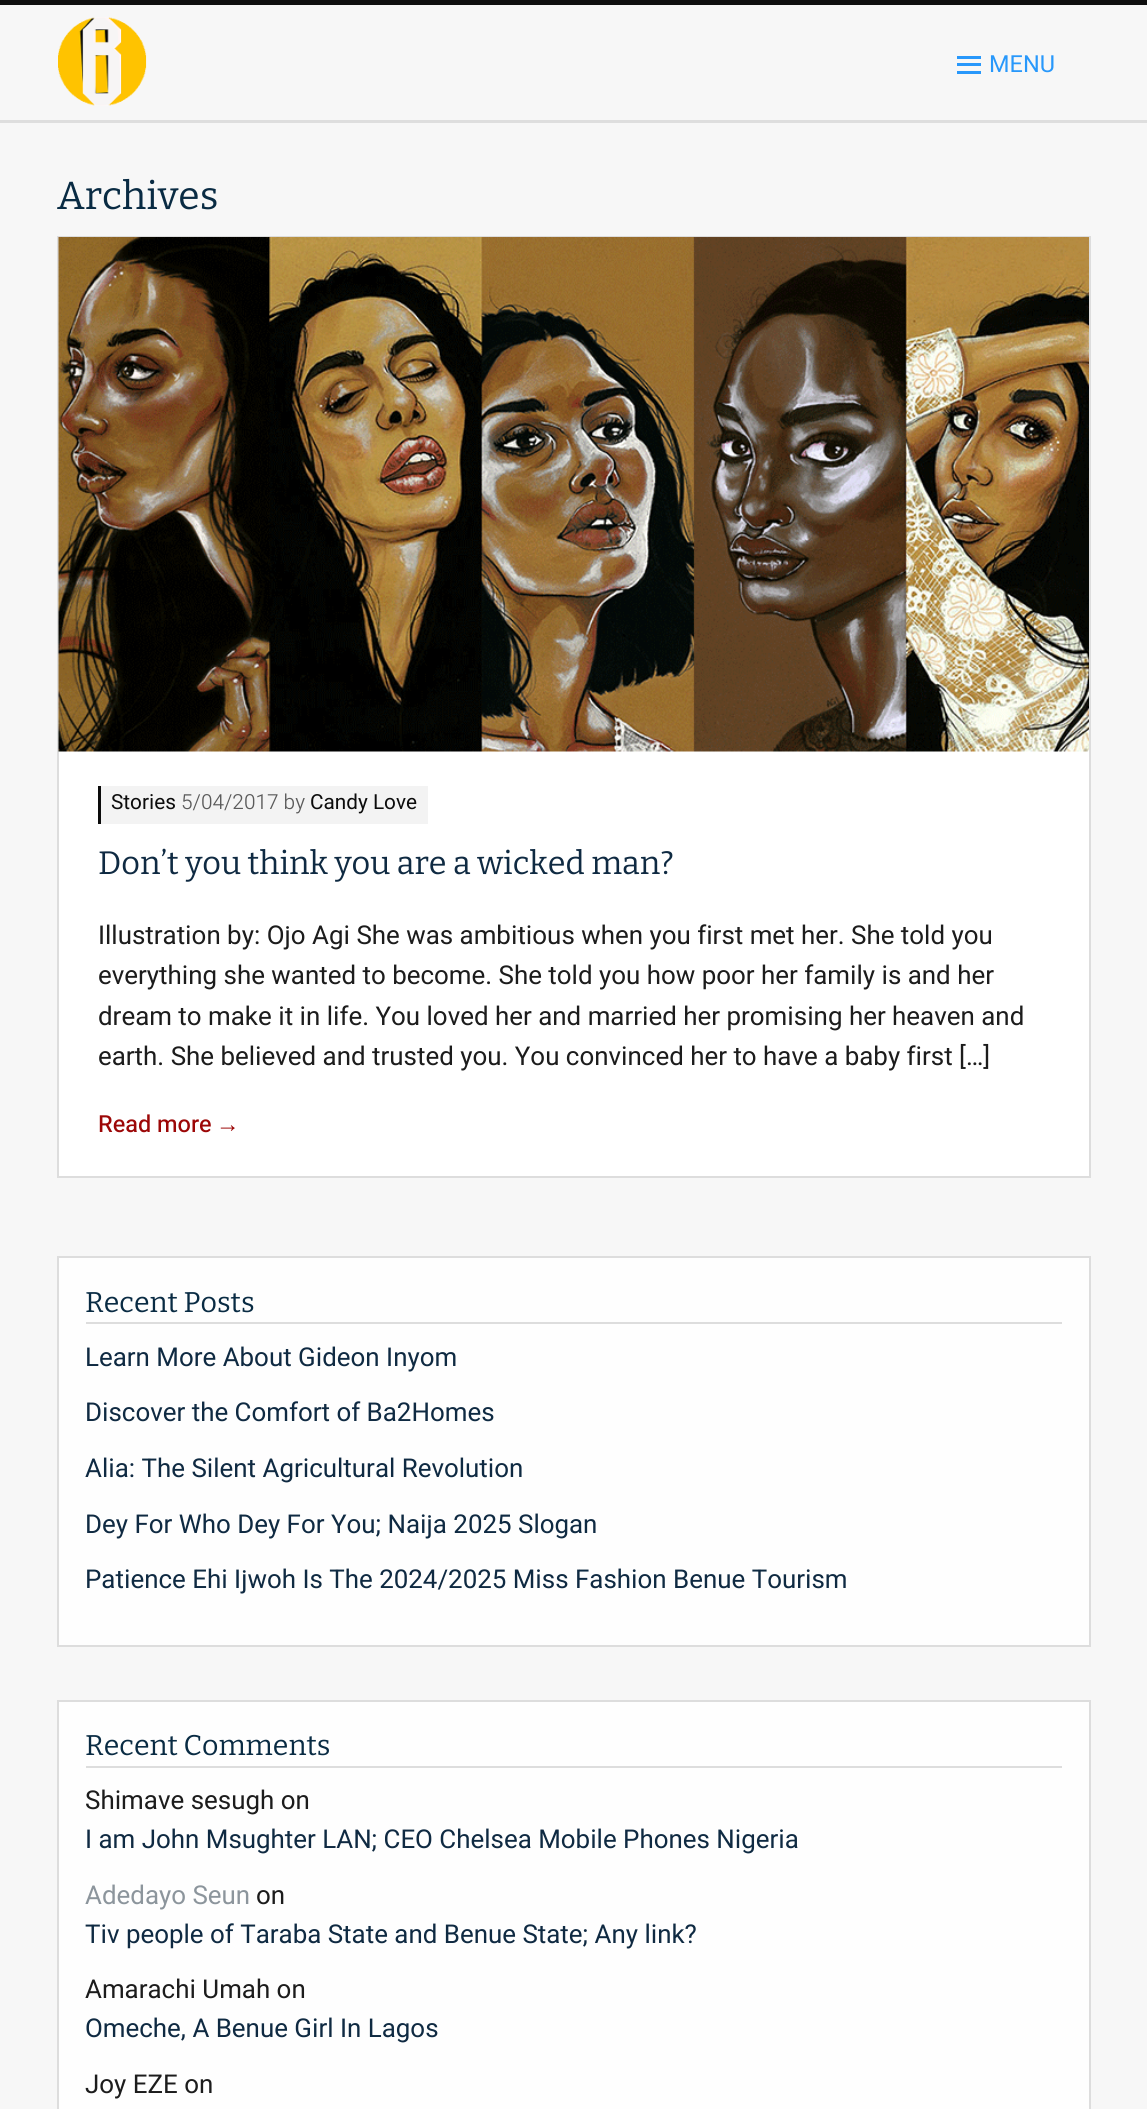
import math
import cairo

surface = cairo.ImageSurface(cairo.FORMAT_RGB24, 1147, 2109)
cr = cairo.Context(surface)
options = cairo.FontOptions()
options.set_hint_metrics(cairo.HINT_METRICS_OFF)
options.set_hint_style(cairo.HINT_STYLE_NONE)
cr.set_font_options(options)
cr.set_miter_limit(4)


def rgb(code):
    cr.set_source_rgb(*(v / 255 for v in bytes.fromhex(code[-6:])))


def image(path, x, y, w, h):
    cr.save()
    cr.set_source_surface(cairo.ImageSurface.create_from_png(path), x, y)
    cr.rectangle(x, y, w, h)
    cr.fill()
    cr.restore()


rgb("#f7f7f7")
cr.paint()
rgb("#0f0f0f")
cr.rectangle(0, 0, 1147, 5)
cr.fill()
rgb("#dedede")
cr.rectangle(0, 120, 1147, 3)
cr.fill()
image("img/1.png", 58, 17, 89, 89)
for x, y, w, h, color in [
    (957, 63, 24, 3, "#2898fb"),
    (957, 56, 24, 3, "#2898fb"),
    (957, 71, 24, 3, "#2898fb"),
    (59, 751, 1030, 425, "#ffffff"),
]:
    rgb(color)
    cr.rectangle(x, y, w, h)
    cr.fill()
cr.rectangle(58, 237, 1032, 940)
rgb("#dddddd")
cr.stroke()
image("img/2.png", 58, 237, 1031, 515)
rgb("#f3f3f3")
cr.rectangle(101, 786, 327, 38)
cr.fill()
rgb("#0c0c0c")
cr.rectangle(98, 786, 3, 38)
cr.fill()
rgb("#fefefe")
cr.rectangle(58, 1257, 1032, 389)
cr.fill_preserve()
rgb("#dddddd")
cr.stroke()
cr.rectangle(86, 1322, 976, 2)
cr.fill()
rgb("#fefefe")
cr.rectangle(58, 1701, 1032, 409)
cr.fill_preserve()
rgb("#dddddd")
cr.stroke()
cr.rectangle(86, 1766, 976, 2)
cr.fill()
cr.select_font_face("Heebo")
cr.set_font_size(23.5)
rgb("#2898fb")
cr.move_to(989, 72)
cr.show_text("MENU")
cr.select_font_face("Bitter Thin")
cr.set_font_size(39)
rgb("#092b43")
cr.move_to(57, 209)
cr.show_text("Archives")
cr.select_font_face("Heebo")
cr.set_font_size(20.75)
rgb("#0c0c0c")
cr.move_to(111, 809)
cr.show_text("Stories")
cr.select_font_face("Heebo Light")
rgb("#5a5a5a")
cr.move_to(181, 809)
cr.show_text("5/04/2017 by")
cr.select_font_face("Heebo")
rgb("#0c0c0c")
cr.move_to(310, 809)
cr.show_text("Candy Love")
cr.select_font_face("Bitter Thin")
cr.set_font_size(32.4)
rgb("#0f2a42")
cr.move_to(98, 874)
cr.show_text("Don’t you think you are a wicked man?")
cr.select_font_face("Heebo")
cr.set_font_size(25.9)
rgb("#1c1c1c")
for x, y, s in [
    (98, 944, "Illustration by: Ojo Agi She was ambitious when you first met her. She told you"),
    (98, 984, "everything she wanted to become. She told you how poor her family is and her"),
    (98, 1025, "dream to make it in life. You loved her and married her promising her heaven and"),
    (98, 1065, "earth. She believed and trusted you. You convinced her to have a baby first […]"),
]:
    cr.move_to(x, y)
    cr.show_text(s)
cr.select_font_face("Heebo Medium")
cr.set_font_size(23.5)
rgb("#9c0707")
cr.move_to(98, 1132)
cr.show_text("Read more")
cr.select_font_face("Liberation Sans")
cr.move_to(216, 1132)
cr.show_text("→")
cr.select_font_face("Bitter Thin")
cr.set_font_size(28.5)
rgb("#092b43")
cr.move_to(85, 1312)
cr.show_text("Recent Posts")
cr.select_font_face("Heebo")
cr.set_font_size(25.9)
rgb("#0f2a42")
for x, y, s in [
    (85, 1366, "Learn More About Gideon Inyom"),
    (85, 1421, "Discover the Comfort of Ba2Homes"),
    (85, 1477, "Alia: The Silent Agricultural Revolution"),
    (85, 1533, "Dey For Who Dey For You; Naija 2025 Slogan"),
    (85, 1588, "Patience Ehi Ijwoh Is The 2024/2025 Miss Fashion Benue Tourism"),
]:
    cr.move_to(x, y)
    cr.show_text(s)
cr.select_font_face("Bitter Thin")
cr.set_font_size(28.5)
rgb("#092b43")
cr.move_to(85, 1755)
cr.show_text("Recent Comments")
cr.select_font_face("Heebo")
cr.set_font_size(25.9)
rgb("#1c1c1c")
cr.move_to(85, 1809)
cr.show_text("Shimave sesugh on")
rgb("#0f2a42")
cr.move_to(85, 1848)
cr.show_text("I am John Msughter LAN; CEO Chelsea Mobile Phones Nigeria")
rgb("#8c959c")
cr.move_to(85, 1904)
cr.show_text("Adedayo Seun")
rgb("#1c1c1c")
cr.move_to(256, 1904)
cr.show_text("on")
rgb("#0f2a42")
cr.move_to(85, 1943)
cr.show_text("Tiv people of Taraba State and Benue State; Any link?")
rgb("#1c1c1c")
cr.move_to(85, 1998)
cr.show_text("Amarachi Umah on")
rgb("#0f2a42")
cr.move_to(85, 2037)
cr.show_text("Omeche, A Benue Girl In Lagos")
rgb("#1c1c1c")
cr.move_to(85, 2093)
cr.show_text("Joy EZE on")
surface.write_to_png("page.png")
